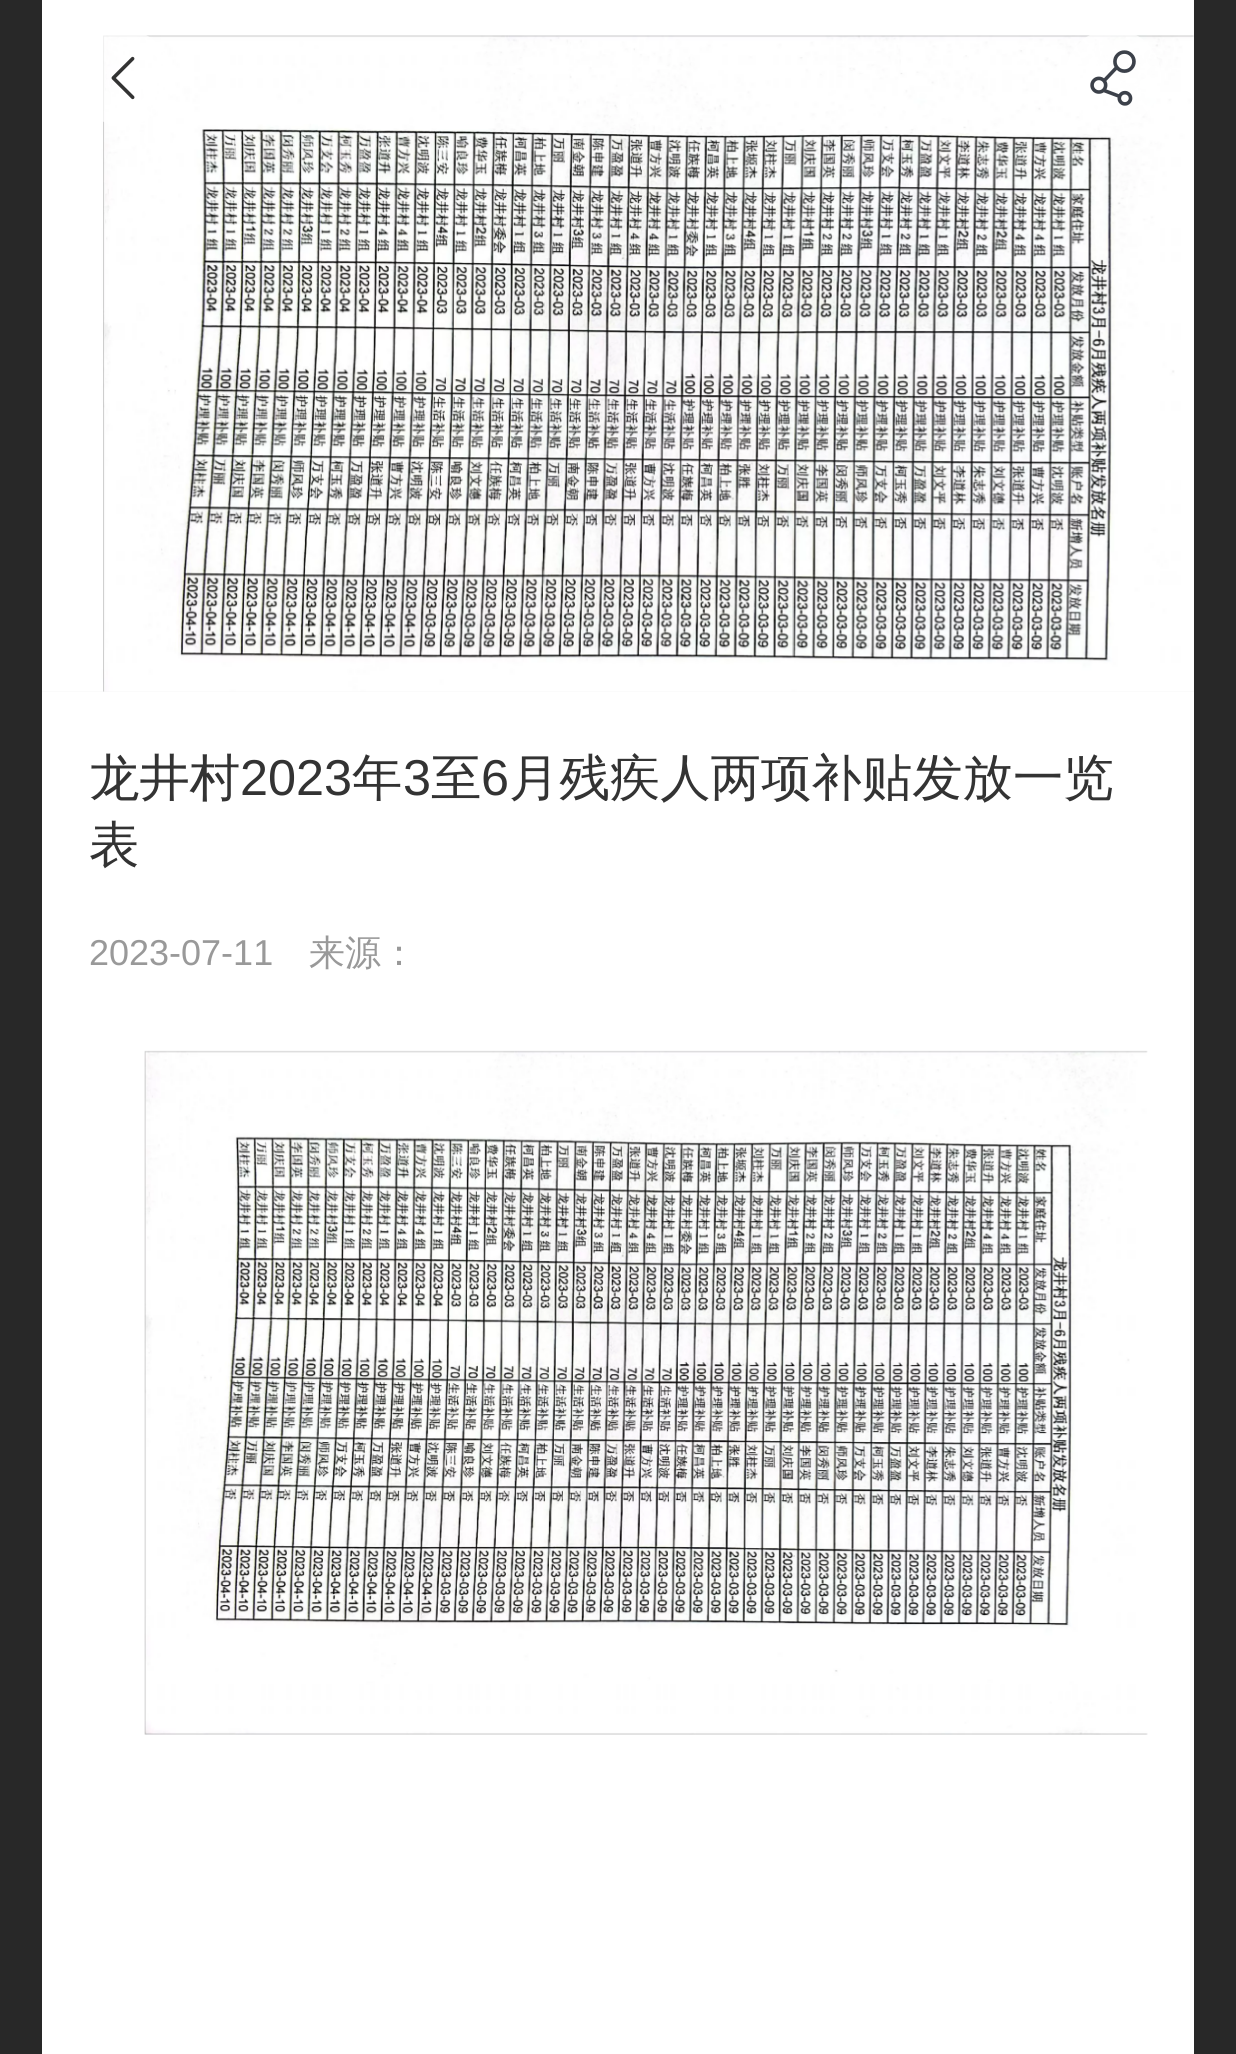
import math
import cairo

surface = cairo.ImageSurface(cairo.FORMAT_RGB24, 1236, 2054)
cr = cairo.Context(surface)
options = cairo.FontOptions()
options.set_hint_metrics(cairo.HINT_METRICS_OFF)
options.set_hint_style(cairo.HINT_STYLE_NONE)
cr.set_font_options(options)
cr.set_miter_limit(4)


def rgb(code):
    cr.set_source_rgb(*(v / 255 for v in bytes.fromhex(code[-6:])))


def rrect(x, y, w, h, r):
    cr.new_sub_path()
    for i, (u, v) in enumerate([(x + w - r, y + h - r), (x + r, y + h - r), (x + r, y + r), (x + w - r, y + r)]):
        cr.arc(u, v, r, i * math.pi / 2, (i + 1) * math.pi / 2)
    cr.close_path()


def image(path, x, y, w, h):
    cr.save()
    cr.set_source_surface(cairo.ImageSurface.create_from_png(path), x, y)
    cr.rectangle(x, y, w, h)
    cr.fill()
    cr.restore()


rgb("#ffffff")
cr.paint()
rgb("#282828")
cr.rectangle(0, 0, 42, 2054)
cr.fill()
rgb("#f6f6f6")
cr.rectangle(42, 0, 1152, 692)
cr.fill()
image("img/3.png", 42, 0, 1152, 692)
cr.set_source_rgba(1, 1, 1, 0.7)
rrect(75, 29, 96, 97, 48)
cr.fill()
image("img/1.png", 111, 56, 24, 44)
rrect(1065, 29, 96, 97, 48)
cr.fill()
image("img/2.png", 1090, 50, 46, 56)
image("img/4.png", 144, 1050, 1004, 685)
rgb("#282828")
cr.rectangle(1194, 0, 42, 2054)
cr.fill()
cr.select_font_face("WenQuanYi Zen Hei Medium")
cr.set_font_size(50.4)
rgb("#333333")
cr.move_to(89, 795)
cr.show_text("龙井村")
cr.select_font_face("Liberation Sans")
cr.move_to(240, 795)
cr.show_text("2023")
cr.select_font_face("WenQuanYi Zen Hei Medium")
cr.move_to(352, 795)
cr.show_text("年")
cr.select_font_face("Liberation Sans")
cr.move_to(403, 795)
cr.show_text("3")
cr.select_font_face("WenQuanYi Zen Hei Medium")
cr.move_to(431, 795)
cr.show_text("至")
cr.select_font_face("Liberation Sans")
cr.move_to(481, 795)
cr.show_text("6")
cr.select_font_face("WenQuanYi Zen Hei Medium")
cr.move_to(509, 795)
cr.show_text("月残疾人两项补贴发放一览")
cr.move_to(89, 862)
cr.show_text("表")
cr.select_font_face("Liberation Sans")
cr.set_font_size(36)
rgb("#999999")
cr.move_to(89, 965)
cr.show_text("2023-07-11")
cr.select_font_face("WenQuanYi Zen Hei Medium")
cr.move_to(309, 965)
cr.show_text("来源：")
surface.write_to_png("page.png")
